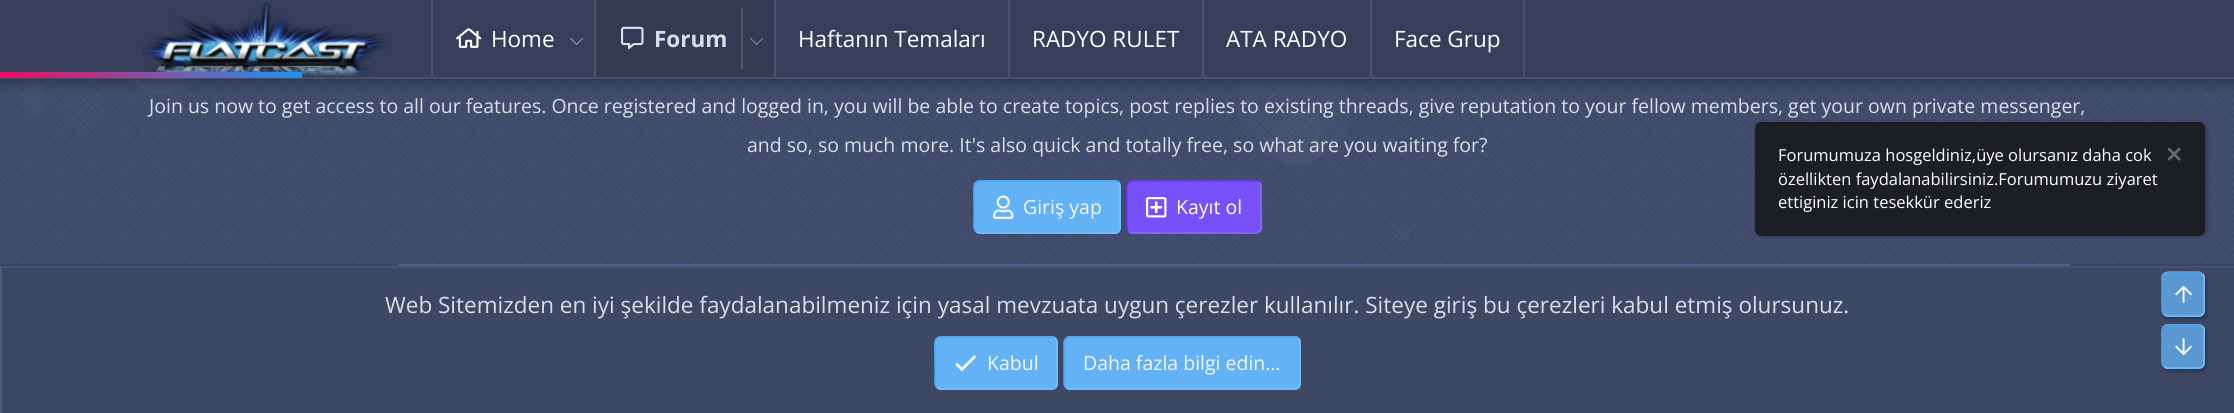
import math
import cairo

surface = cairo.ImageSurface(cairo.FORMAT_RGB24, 2234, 413)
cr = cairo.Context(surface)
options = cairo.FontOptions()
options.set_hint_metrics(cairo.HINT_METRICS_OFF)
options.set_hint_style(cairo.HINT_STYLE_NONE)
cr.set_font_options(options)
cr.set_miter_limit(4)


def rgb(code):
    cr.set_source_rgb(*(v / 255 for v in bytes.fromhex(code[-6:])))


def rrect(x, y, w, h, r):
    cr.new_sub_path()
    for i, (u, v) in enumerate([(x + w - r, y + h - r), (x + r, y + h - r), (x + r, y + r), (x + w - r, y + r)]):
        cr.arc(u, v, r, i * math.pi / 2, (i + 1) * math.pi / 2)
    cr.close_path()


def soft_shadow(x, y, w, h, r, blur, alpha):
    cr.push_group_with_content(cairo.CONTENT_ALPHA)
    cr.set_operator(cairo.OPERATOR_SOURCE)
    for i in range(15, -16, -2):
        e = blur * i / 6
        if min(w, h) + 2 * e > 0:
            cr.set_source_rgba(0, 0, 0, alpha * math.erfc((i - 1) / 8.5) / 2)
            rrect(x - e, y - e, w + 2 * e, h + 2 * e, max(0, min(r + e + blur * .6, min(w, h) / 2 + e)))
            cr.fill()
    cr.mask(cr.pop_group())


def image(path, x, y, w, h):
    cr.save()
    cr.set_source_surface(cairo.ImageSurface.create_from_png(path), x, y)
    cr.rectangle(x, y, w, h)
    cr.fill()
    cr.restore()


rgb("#434d70")
cr.paint()
image("img/6.png", 0, 78, 2234, 186)
image("img/7.png", 24, 78, 1386, 161)
rgb("#000000")
soft_shadow(-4, -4, 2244, 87, 0, 6, 0.3)
rgb("#363e5a")
cr.rectangle(0, 0, 2234, 78)
cr.fill()
cr.set_source_rgba(1, 1, 1, 0.1)
cr.rectangle(0, 77, 2234, 2)
cr.fill()
image("img/1.png", 142, 2, 249, 74)
rgb("#4a516b")
cr.rectangle(431, 0, 2, 77)
cr.fill()
image("img/2.png", 456, 28, 26, 20)
image("img/3.png", 570, 37, 14, 8)
cr.rectangle(594, 0, 2, 77)
cr.fill()
rgb("#323a54")
cr.rectangle(596, 0, 178, 77)
cr.fill()
image("img/4.png", 621, 26, 23, 24)
rgb("#50576e")
cr.rectangle(741, 8, 2, 61)
cr.fill()
image("img/5.png", 750, 37, 14, 8)
for x, y, w, h, color in [
    (774, 0, 2, 77, "#4a516b"),
    (1008, 0, 2, 77, "#4a516b"),
    (1202, 0, 2, 77, "#4a516b"),
    (1523, 0, 2, 77, "#4a516b"),
    (1370, 0, 2, 77, "#4a516b"),
]:
    rgb(color)
    cr.rectangle(x, y, w, h)
    cr.fill()
gradient = cairo.LinearGradient(74, 152, 228, -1.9)
gradient.add_color_stop_rgba(0, 0.953, 0.039, 0.361, 1)
gradient.add_color_stop_rgba(1, 0.11, 0.584, 0.953, 1)
cr.set_source(gradient)
cr.rectangle(0, 72, 302, 6)
cr.fill()
rgb("#63b2f5")
rrect(974, 180, 147, 54, 6)
cr.fill()
cr.new_path()
cr.move_to(1118, 182.5)
cr.curve_to(1121, 185, 1120, 190, 1120, 193)
cr.line_to(1120, 207)
cr.curve_to(1120, 238, 1124.5, 233, 1092, 233)
cr.line_to(979.5, 233)
cr.curve_to(978, 233, 977, 232.5, 976, 231.5)
rgb("#7bbef7")
cr.set_line_width(1.5)
cr.stroke()
cr.new_path()
cr.move_to(976, 231.5)
cr.curve_to(973, 229, 974, 224, 974, 221)
cr.line_to(974, 207)
cr.curve_to(974, 176, 969.5, 181, 1002, 181)
cr.line_to(1114.5, 181)
cr.curve_to(1116, 181, 1117, 181.5, 1118, 182.5)
rgb("#4ba6f3")
cr.stroke()
image("img/8.png", 993, 195, 21, 24)
rgb("#7750f8")
rrect(1127, 180, 135, 54, 6)
cr.fill()
cr.new_path()
cr.move_to(1259, 182.5)
cr.curve_to(1262, 185, 1261, 190, 1261, 193)
cr.line_to(1261, 207)
cr.curve_to(1261, 237.5, 1266, 233, 1235, 233)
cr.line_to(1132.5, 233)
cr.curve_to(1131, 233, 1130, 232.5, 1129, 231.5)
rgb("#8a69f9")
cr.stroke()
cr.new_path()
cr.move_to(1129, 231.5)
cr.curve_to(1126, 229, 1127, 224, 1127, 221)
cr.line_to(1127, 207)
cr.curve_to(1127, 176.5, 1122, 181, 1153, 181)
cr.line_to(1255.5, 181)
cr.curve_to(1257, 181, 1258, 181.5, 1259, 182.5)
rgb("#6437f7")
cr.stroke()
image("img/9.png", 1146, 197, 21, 21)
for x, y, w, h, color in [
    (0, 264, 398, 2, "#3c4564"),
    (398, 264, 1672, 2, "#535f8a"),
    (2070, 264, 164, 2, "#3c4564"),
]:
    rgb(color)
    cr.rectangle(x, y, w, h)
    cr.fill()
cr.save()
cr.set_fill_rule(cairo.FILL_RULE_EVEN_ODD)
cr.new_path()
cr.move_to(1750, 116)
cr.line_to(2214, 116)
cr.line_to(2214, 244)
cr.line_to(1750, 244)
cr.close_path()
cr.move_to(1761, 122)
cr.line_to(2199, 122)
cr.curve_to(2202.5, 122, 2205, 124.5, 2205, 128)
cr.line_to(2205, 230)
cr.curve_to(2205, 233.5, 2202.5, 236, 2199, 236)
cr.line_to(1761, 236)
cr.curve_to(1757.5, 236, 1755, 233.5, 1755, 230)
cr.line_to(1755, 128)
cr.curve_to(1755, 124.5, 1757.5, 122, 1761, 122)
cr.close_path()
cr.clip()
rgb("#000000")
soft_shadow(1757, 123, 450, 114, 6, 2, 0.25)
cr.restore()
cr.set_source_rgba(0.078, 0.078, 0.078, 0.8)
rrect(1755, 122, 450, 114, 6)
cr.fill()
image("img/10.png", 2167, 147, 14, 14)
for x, y, w, h, color in [
    (2, 268, 2232, 145, "#3e4764"),
    (0, 266, 2234, 2, "#485278"),
    (0, 266, 2, 147, "#4e5982"),
]:
    rgb(color)
    cr.rectangle(x, y, w, h)
    cr.fill()
rgb("#63b2f5")
rrect(935, 336, 123, 54, 6)
cr.fill()
cr.new_path()
cr.move_to(1055, 338.5)
cr.curve_to(1058, 341, 1057, 346, 1057, 349)
cr.line_to(1057, 363)
cr.curve_to(1057, 392.5, 1062, 389, 1033, 389)
cr.line_to(940.5, 389)
cr.curve_to(939, 389, 938, 388.5, 937, 387.5)
rgb("#7bbef7")
cr.stroke()
cr.new_path()
cr.move_to(937, 387.5)
cr.curve_to(934, 385, 935, 380, 935, 377)
cr.line_to(935, 363)
cr.curve_to(935, 333.5, 930, 337, 959, 337)
cr.line_to(1051.5, 337)
cr.curve_to(1053, 337, 1054, 337.5, 1055, 338.5)
rgb("#4ba6f3")
cr.stroke()
image("img/11.png", 955, 355, 22, 17)
rgb("#63b2f5")
rrect(1064, 336, 237, 54, 6)
cr.fill()
cr.new_path()
cr.move_to(1298, 338.5)
cr.curve_to(1299, 339.5, 1300, 340.5, 1300, 342)
cr.line_to(1300, 384)
cr.curve_to(1300, 385.5, 1299, 386.5, 1298, 387.5)
cr.curve_to(1297, 388.5, 1296, 389, 1294.5, 389)
cr.line_to(1069.5, 389)
cr.curve_to(1068, 389, 1067, 388.5, 1066, 387.5)
rgb("#7bbef7")
cr.stroke()
cr.new_path()
cr.move_to(1066, 387.5)
cr.curve_to(1065, 386.5, 1064, 385.5, 1064, 384)
cr.line_to(1064, 342)
cr.curve_to(1064, 340.5, 1065, 339.5, 1066, 338.5)
cr.curve_to(1067, 337.5, 1068, 337, 1069.5, 337)
cr.line_to(1294.5, 337)
cr.curve_to(1296, 337, 1297, 337.5, 1298, 338.5)
rgb("#4ba6f3")
cr.stroke()
cr.save()
cr.set_fill_rule(cairo.FILL_RULE_EVEN_ODD)
cr.new_path()
cr.move_to(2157, 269)
cr.line_to(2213, 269)
cr.line_to(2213, 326)
cr.line_to(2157, 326)
cr.close_path()
cr.move_to(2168, 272)
cr.line_to(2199, 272)
cr.curve_to(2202.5, 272, 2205, 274.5, 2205, 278)
cr.line_to(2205, 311)
cr.curve_to(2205, 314.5, 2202.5, 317, 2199, 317)
cr.line_to(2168, 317)
cr.curve_to(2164.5, 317, 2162, 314.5, 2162, 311)
cr.line_to(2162, 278)
cr.curve_to(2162, 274.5, 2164.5, 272, 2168, 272)
cr.close_path()
cr.clip()
rgb("#000000")
soft_shadow(2163, 275, 44, 45, 6, 1.5, 0.25)
cr.restore()
cr.set_source_rgba(0.388, 0.698, 0.961, 0.75)
rrect(2162, 272, 43, 45, 6)
cr.fill()
cr.new_path()
cr.move_to(2202.5, 274)
cr.curve_to(2205, 276, 2204, 280, 2204, 283)
cr.line_to(2204, 294)
cr.curve_to(2204, 318.5, 2207.5, 316, 2183, 316)
cr.line_to(2173, 316)
cr.curve_to(2170, 316, 2166, 316.5, 2164, 314)
rgb("#7bbef7")
cr.stroke()
cr.new_path()
cr.move_to(2164, 314)
cr.curve_to(2161.5, 312, 2162, 308, 2162, 305)
cr.line_to(2162, 294)
cr.curve_to(2162, 269.5, 2159, 272, 2183, 272)
cr.line_to(2194, 272)
cr.curve_to(2196.5, 272, 2200.5, 271.5, 2202.5, 274)
rgb("#4ba6f3")
cr.stroke()
image("img/12.png", 2175, 285, 17, 18)
cr.save()
cr.set_fill_rule(cairo.FILL_RULE_EVEN_ODD)
cr.new_path()
cr.move_to(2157, 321)
cr.line_to(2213, 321)
cr.line_to(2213, 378)
cr.line_to(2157, 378)
cr.close_path()
cr.move_to(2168, 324)
cr.line_to(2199, 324)
cr.curve_to(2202.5, 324, 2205, 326.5, 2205, 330)
cr.line_to(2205, 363)
cr.curve_to(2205, 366.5, 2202.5, 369, 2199, 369)
cr.line_to(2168, 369)
cr.curve_to(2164.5, 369, 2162, 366.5, 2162, 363)
cr.line_to(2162, 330)
cr.curve_to(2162, 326.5, 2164.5, 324, 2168, 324)
cr.close_path()
cr.clip()
rgb("#000000")
soft_shadow(2163, 327, 44, 45, 6, 1.5, 0.25)
cr.restore()
cr.set_source_rgba(0.388, 0.698, 0.961, 0.75)
rrect(2162, 324, 43, 45, 6)
cr.fill()
cr.new_path()
cr.move_to(2202.5, 326.5)
cr.curve_to(2205, 328.5, 2204, 332.5, 2204, 335.5)
cr.line_to(2204, 346.5)
cr.curve_to(2204, 371, 2207.5, 368, 2183, 368)
cr.line_to(2173, 368)
cr.curve_to(2170, 368, 2166, 369, 2164, 366.5)
rgb("#7bbef7")
cr.stroke()
cr.new_path()
cr.move_to(2164, 366.5)
cr.curve_to(2161.5, 364.5, 2162, 360.5, 2162, 357.5)
cr.line_to(2162, 346.5)
cr.curve_to(2162, 322, 2159, 325, 2183, 325)
cr.line_to(2194, 325)
cr.curve_to(2196.5, 325, 2200.5, 324, 2202.5, 326.5)
rgb("#4ba6f3")
cr.stroke()
image("img/13.png", 2175, 338, 17, 18)
cr.select_font_face("Open Sans")
cr.set_font_size(22.5)
rgb("#ffffff")
cr.move_to(491, 47)
cr.show_text("Home")
cr.select_font_face("Open Sans", cairo.FONT_SLANT_NORMAL, cairo.FONT_WEIGHT_BOLD)
rgb("#dbdee8")
cr.move_to(654, 47)
cr.show_text("Forum")
cr.select_font_face("Open Sans")
rgb("#ffffff")
for x, y, s in [
    (798, 47, "Haftanın Temaları"),
    (1032, 47, "RADYO RULET"),
    (1226, 47, "ATA RADYO"),
    (1394, 47, "Face Grup"),
]:
    cr.move_to(x, y)
    cr.show_text(s)
cr.set_font_size(19.5)
rgb("#dbdee8")
cr.move_to(149, 113)
cr.show_text("Join us now to get access to all our features. Once registered and logged in, you will be able to create topics, post replies to existing threads, give reputation to your fellow members, get your own private messenger,")
cr.move_to(747, 152)
cr.show_text("and so, so much more. It's also quick and totally free, so what are you waiting for?")
rgb("#f5f6f9")
cr.move_to(1023, 214)
cr.show_text("Giriş yap")
rgb("#ffffff")
cr.move_to(1176, 214)
cr.show_text("Kayıt ol")
cr.set_font_size(16.5)
for x, y, s in [
    (1778, 161, "Forumumuza hosgeldiniz,üye olursanız daha cok"),
    (1778, 185, "özellikten faydalanabilirsiniz.Forumumuzu ziyaret"),
    (1778, 208, "ettiginiz icin tesekkür ederiz"),
]:
    cr.move_to(x, y)
    cr.show_text(s)
cr.set_font_size(22.5)
rgb("#dbdee8")
cr.move_to(385, 313)
cr.show_text("Web Sitemizden en iyi şekilde faydalanabilmeniz için yasal mevzuata uygun çerezler kullanılır. Siteye giriş bu çerezleri kabul etmiş olursunuz.")
cr.set_font_size(19.5)
rgb("#f5f6f9")
cr.move_to(987, 370)
cr.show_text("Kabul")
cr.move_to(1083, 370)
cr.show_text("Daha fazla bilgi edin…")
surface.write_to_png("page.png")
